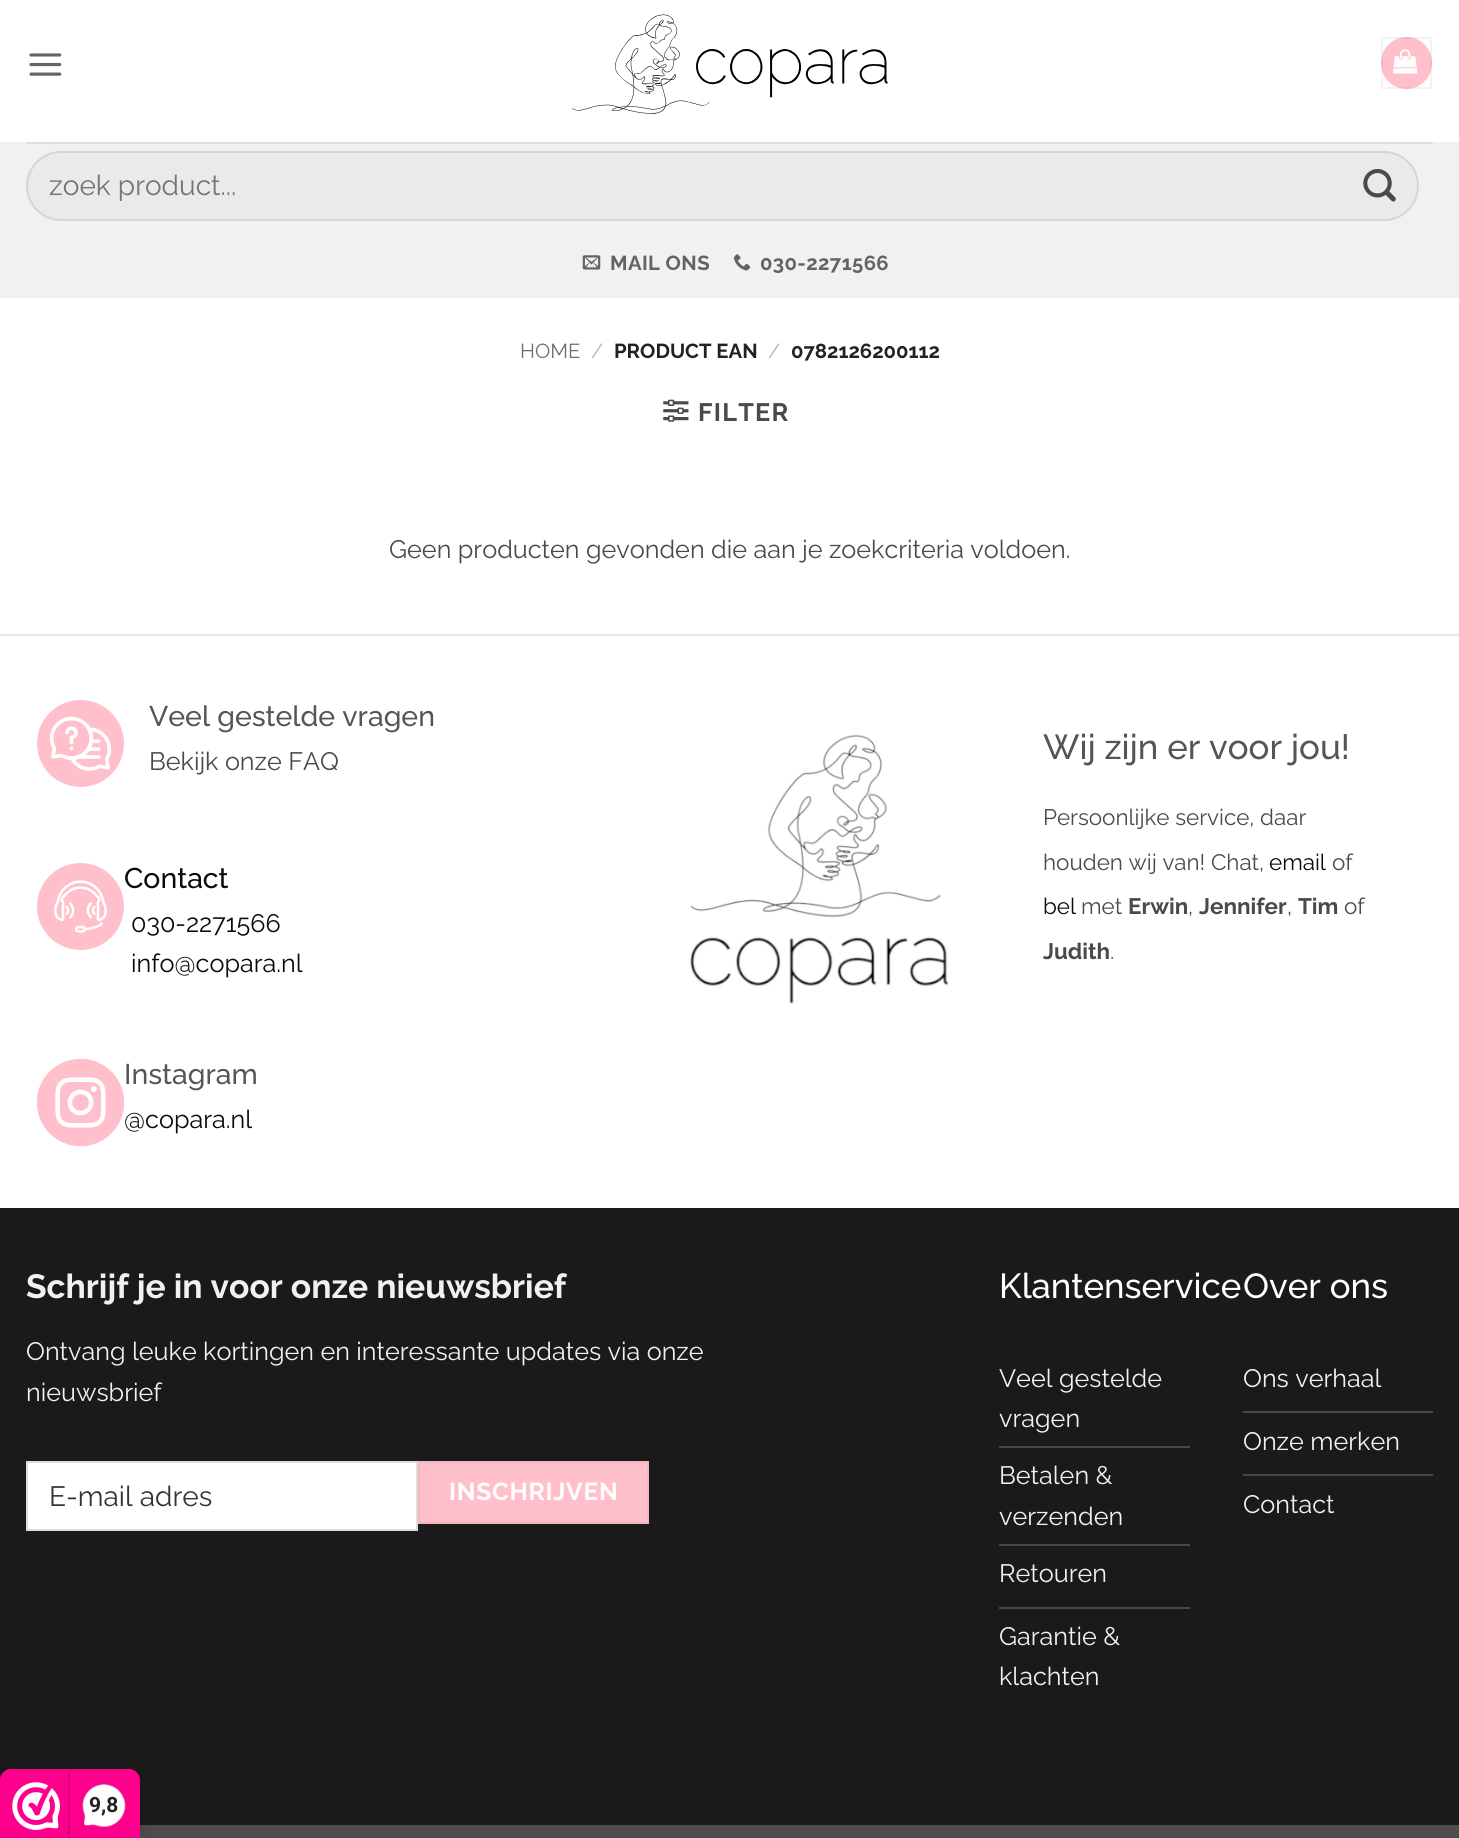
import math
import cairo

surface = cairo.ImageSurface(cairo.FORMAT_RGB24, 1459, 1838)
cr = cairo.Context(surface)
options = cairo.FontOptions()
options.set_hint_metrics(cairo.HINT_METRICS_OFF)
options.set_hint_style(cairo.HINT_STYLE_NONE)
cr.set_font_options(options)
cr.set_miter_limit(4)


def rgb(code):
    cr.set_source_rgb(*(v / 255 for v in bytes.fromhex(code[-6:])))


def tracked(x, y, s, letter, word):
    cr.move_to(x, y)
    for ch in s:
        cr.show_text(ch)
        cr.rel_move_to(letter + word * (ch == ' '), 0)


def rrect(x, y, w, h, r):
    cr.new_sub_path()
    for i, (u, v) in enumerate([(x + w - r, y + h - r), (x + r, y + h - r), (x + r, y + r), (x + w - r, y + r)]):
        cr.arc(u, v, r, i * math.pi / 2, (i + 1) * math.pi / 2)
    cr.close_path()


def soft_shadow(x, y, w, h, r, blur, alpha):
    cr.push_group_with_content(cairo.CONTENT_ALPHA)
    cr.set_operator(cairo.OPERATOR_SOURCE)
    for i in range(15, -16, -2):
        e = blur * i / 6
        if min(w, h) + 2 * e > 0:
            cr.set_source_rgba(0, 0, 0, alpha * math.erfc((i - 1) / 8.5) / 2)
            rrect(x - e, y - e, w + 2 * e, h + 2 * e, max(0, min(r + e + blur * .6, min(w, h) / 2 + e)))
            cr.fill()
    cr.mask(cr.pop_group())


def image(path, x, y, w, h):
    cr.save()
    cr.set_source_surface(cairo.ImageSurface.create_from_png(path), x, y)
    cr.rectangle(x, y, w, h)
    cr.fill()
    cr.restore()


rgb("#ffffff")
cr.paint()
image("img/1.png", 29, 53, 33, 23)
image("img/2.png", 572, 14, 316, 100)
rgb("#ffc0cb")
rrect(1381, 37, 51, 52, 25.5)
cr.fill()
cr.rectangle(1382, 38, 49, 50)
cr.set_source_rgba(0, 0, 0, 0.05)
cr.stroke()
image("img/3.png", 1393, 49, 25, 25)
rgb("#f1f1f1")
cr.rectangle(0, 142, 1459, 156)
cr.fill()
rgb("#e0e0e0")
cr.rectangle(26, 142, 1407, 2)
cr.fill()
rgb("#eaeaea")
rrect(26, 151, 1393, 70, 35)
cr.fill()
rrect(27, 152, 1391, 68, 34)
cr.set_source_rgba(0, 0, 0, 0.09)
cr.stroke()
image("img/4.png", 1363, 168, 33, 34)
image("img/5.png", 582, 255, 19, 15)
image("img/6.png", 733, 254, 18, 17)
image("img/7.png", 663, 399, 26, 23)
rgb("#e6e6e6")
cr.rectangle(0, 634, 1459, 2)
cr.fill()
image("img/8.png", 37, 700, 87, 87)
image("img/9.png", 37, 863, 87, 87)
image("img/10.png", 37, 1059, 87, 87)
image("img/11.png", 690, 735, 259, 269)
rgb("#1a1a1a")
cr.rectangle(0, 1208, 1459, 617)
cr.fill()
rgb("#ffffff")
cr.rectangle(27, 1462, 390, 68)
cr.fill_preserve()
rgb("#dddddd")
cr.stroke()
rgb("#ffc0cb")
cr.rectangle(419, 1462, 229, 61)
cr.fill_preserve()
rgb("#f2b6c1")
cr.stroke()
for x, y, w, h, color in [
    (999, 1446, 191, 2, "#484848"),
    (999, 1544, 191, 2, "#484848"),
    (999, 1607, 191, 2, "#484848"),
    (1243, 1411, 190, 2, "#484848"),
    (1243, 1474, 190, 2, "#484848"),
    (140, 1825, 1319, 13, "#4d4d4d"),
]:
    rgb(color)
    cr.rectangle(x, y, w, h)
    cr.fill()
rgb("#000000")
soft_shadow(0, 1773, 140, 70, 11, 9, 0.15)
rgb("#fe008c")
cr.new_path()
cr.move_to(11, 1769)
cr.line_to(129, 1769)
cr.curve_to(135, 1769, 140, 1774, 140, 1780)
cr.line_to(140, 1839)
cr.line_to(0, 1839)
cr.line_to(0, 1780)
cr.curve_to(0, 1774, 5, 1769, 11, 1769)
cr.close_path()
cr.fill()
image("img/12.png", 12, 1782, 48, 48)
rgb("#d80077")
cr.rectangle(68, 1771, 2, 67)
cr.fill()
image("img/13.png", 82, 1784, 44, 44)
cr.select_font_face("Raleway")
cr.set_font_size(28)
rgb("#757575")
cr.move_to(49, 195)
cr.show_text("zoek product...")
cr.select_font_face("Raleway", cairo.FONT_SLANT_NORMAL, cairo.FONT_WEIGHT_BOLD)
cr.set_font_size(20.25)
rgb("#636363")
tracked(610, 270, "MAIL ONS", 0.4, 0)
tracked(760, 270, "030-2271566", 0.4, 0)
cr.select_font_face("Raleway")
rgb("#6e6e6e")
cr.move_to(520, 358)
cr.show_text("HOME")
rgb("#b2b2b2")
cr.move_to(591, 358)
cr.show_text("/")
cr.select_font_face("Raleway", cairo.FONT_SLANT_NORMAL, cairo.FONT_WEIGHT_BOLD)
rgb("#222222")
cr.move_to(614, 358)
cr.show_text("PRODUCT EAN")
cr.select_font_face("Raleway")
rgb("#b2b2b2")
cr.move_to(768, 358)
cr.show_text("/")
cr.select_font_face("Raleway", cairo.FONT_SLANT_NORMAL, cairo.FONT_WEIGHT_BOLD)
rgb("#222222")
cr.move_to(791, 358)
cr.show_text("0782126200112")
cr.set_font_size(25.2)
rgb("#4a4a4a")
tracked(698, 421, "FILTER", 1.25, 0)
cr.select_font_face("Raleway")
cr.move_to(389, 558)
cr.show_text("Geen producten gevonden die aan je zoekcriteria voldoen.")
cr.select_font_face("Raleway Medium")
cr.set_font_size(28.4)
rgb("#555555")
cr.move_to(149, 726)
cr.show_text("Veel gestelde vragen")
cr.select_font_face("Raleway")
cr.set_font_size(25.2)
rgb("#4a4a4a")
cr.move_to(149, 770)
cr.show_text("Bekijk onze FAQ")
cr.select_font_face("Raleway Medium")
cr.set_font_size(28.4)
rgb("#0a0a0a")
cr.move_to(124, 888)
cr.show_text("Contact")
cr.select_font_face("Raleway")
cr.set_font_size(25.2)
cr.move_to(131, 932)
cr.show_text("030-2271566")
cr.move_to(131, 972)
cr.show_text("info@copara.nl")
cr.select_font_face("Raleway Medium")
cr.set_font_size(28.4)
rgb("#555555")
cr.move_to(124, 1084)
cr.show_text("Instagram")
cr.select_font_face("Raleway")
cr.set_font_size(25.2)
rgb("#0a0a0a")
cr.move_to(124, 1128)
cr.show_text("@copara.nl")
cr.select_font_face("Raleway Medium")
cr.set_font_size(34.75)
rgb("#555555")
cr.move_to(1043, 759)
cr.show_text("Wij zijn er voor jou!")
cr.select_font_face("Raleway")
cr.set_font_size(22.4)
rgb("#4a4a4a")
cr.move_to(1043, 825)
cr.show_text("Persoonlijke service, daar")
cr.move_to(1043, 870)
cr.show_text("houden wij van! Chat,")
rgb("#0a0a0a")
cr.move_to(1269, 870)
cr.show_text("email")
rgb("#4a4a4a")
cr.move_to(1332, 870)
cr.show_text("of")
rgb("#0a0a0a")
cr.move_to(1043, 914)
cr.show_text("bel")
rgb("#4a4a4a")
cr.move_to(1081, 914)
cr.show_text("met")
cr.select_font_face("Raleway", cairo.FONT_SLANT_NORMAL, cairo.FONT_WEIGHT_BOLD)
cr.move_to(1128, 914)
cr.show_text("Erwin")
cr.select_font_face("Raleway")
cr.move_to(1188, 914)
cr.show_text(",")
cr.select_font_face("Raleway", cairo.FONT_SLANT_NORMAL, cairo.FONT_WEIGHT_BOLD)
cr.move_to(1199, 914)
cr.show_text("Jennifer")
cr.select_font_face("Raleway")
cr.move_to(1287, 914)
cr.show_text(",")
cr.select_font_face("Raleway", cairo.FONT_SLANT_NORMAL, cairo.FONT_WEIGHT_BOLD)
cr.move_to(1298, 914)
cr.show_text("Tim")
cr.select_font_face("Raleway")
cr.move_to(1344, 914)
cr.show_text("of")
cr.select_font_face("Raleway", cairo.FONT_SLANT_NORMAL, cairo.FONT_WEIGHT_BOLD)
cr.move_to(1043, 959)
cr.show_text("Judith")
cr.select_font_face("Raleway")
cr.move_to(1110, 959)
cr.show_text(".")
cr.select_font_face("Raleway", cairo.FONT_SLANT_NORMAL, cairo.FONT_WEIGHT_BOLD)
cr.set_font_size(33.6)
rgb("#f1f1f1")
cr.move_to(26, 1298)
cr.show_text("Schrijf je in voor onze nieuwsbrief")
cr.select_font_face("Raleway")
cr.set_font_size(25.2)
cr.move_to(26, 1360)
cr.show_text("Ontvang leuke kortingen en interessante updates via onze")
cr.move_to(26, 1401)
cr.show_text("nieuwsbrief")
cr.set_font_size(28)
rgb("#333333")
cr.move_to(49, 1506)
cr.show_text("E-mail adres")
cr.select_font_face("Raleway", cairo.FONT_SLANT_NORMAL, cairo.FONT_WEIGHT_BOLD)
cr.set_font_size(24.5)
rgb("#ffffff")
tracked(449, 1500, "INSCHRIJVEN", 0.75, 0)
cr.select_font_face("Raleway Medium")
cr.set_font_size(34.75)
cr.move_to(999, 1298)
cr.show_text("Klantenservice")
cr.select_font_face("Raleway")
cr.set_font_size(25.2)
rgb("#f1f1f1")
for x, y, s in [
    (999, 1387, "Veel gestelde"),
    (999, 1427, "vragen"),
    (999, 1484, "Betalen &"),
    (999, 1525, "verzenden"),
    (999, 1582, "Retouren"),
    (999, 1645, "Garantie &"),
    (999, 1685, "klachten"),
]:
    cr.move_to(x, y)
    cr.show_text(s)
cr.select_font_face("Raleway Medium")
cr.set_font_size(34.75)
rgb("#ffffff")
cr.move_to(1243, 1298)
cr.show_text("Over ons")
cr.select_font_face("Raleway")
cr.set_font_size(25.2)
rgb("#f1f1f1")
for x, y, s in [
    (1243, 1387, "Ons verhaal"),
    (1243, 1450, "Onze merken"),
    (1243, 1513, "Contact"),
]:
    cr.move_to(x, y)
    cr.show_text(s)
cr.select_font_face("Roboto", cairo.FONT_SLANT_NORMAL, cairo.FONT_WEIGHT_BOLD)
cr.set_font_size(21)
rgb("#222222")
cr.move_to(89, 1812)
cr.show_text("9,8")
surface.write_to_png("page.png")
